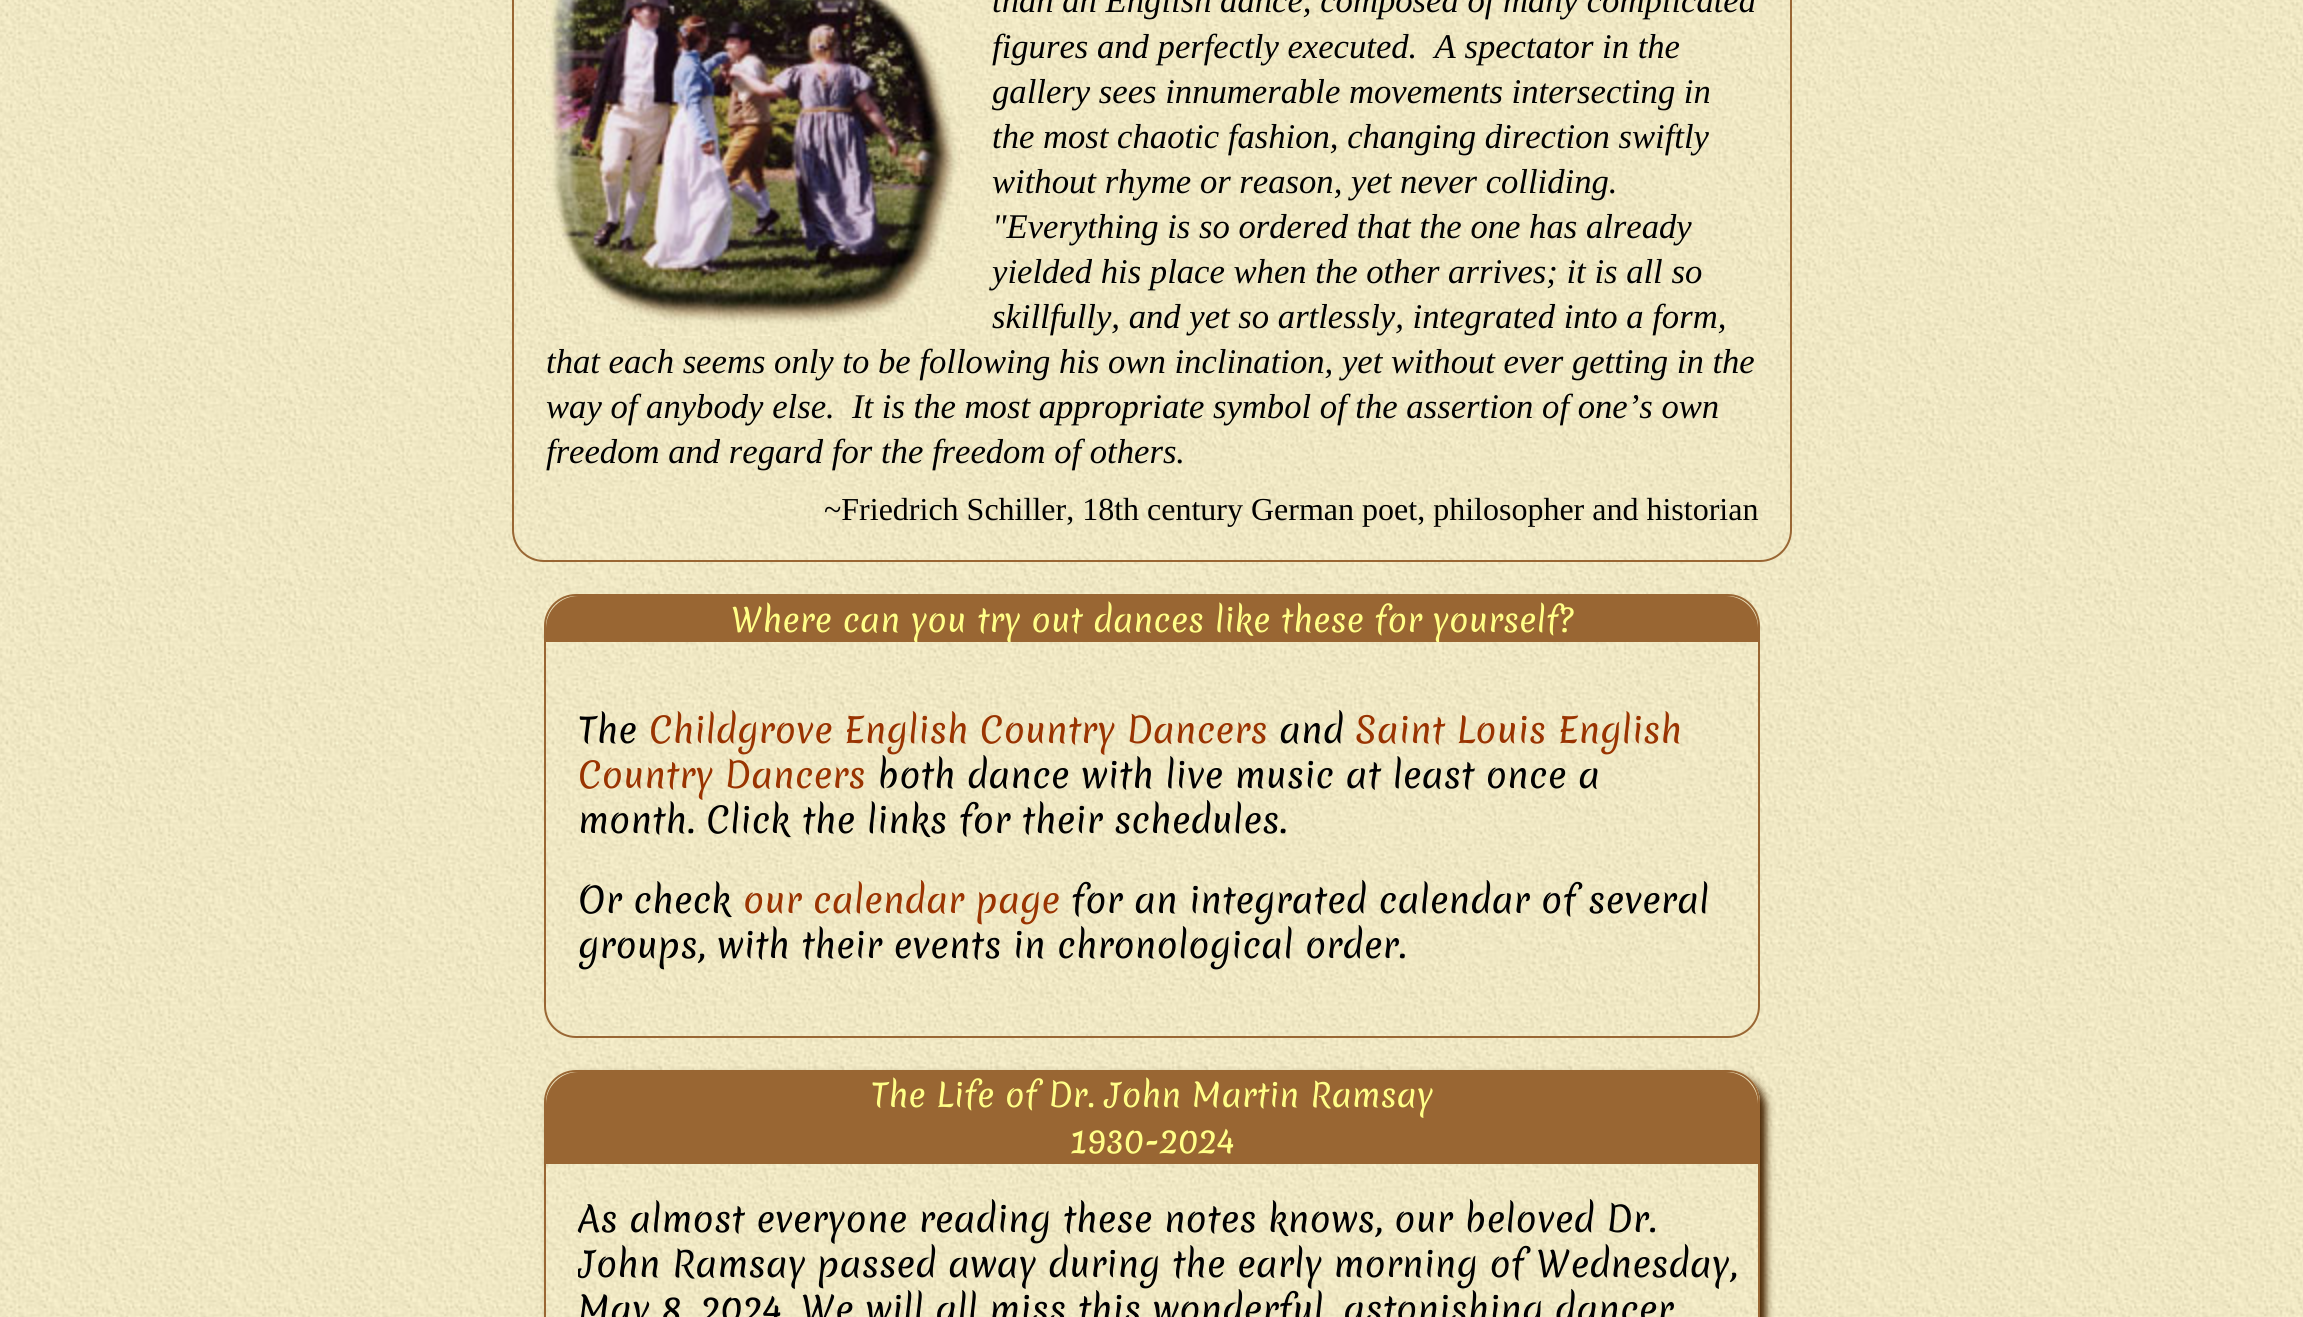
import math
import cairo

surface = cairo.ImageSurface(cairo.FORMAT_RGB24, 2303, 1317)
cr = cairo.Context(surface)
options = cairo.FontOptions()
options.set_hint_metrics(cairo.HINT_METRICS_OFF)
options.set_hint_style(cairo.HINT_STYLE_NONE)
cr.set_font_options(options)
cr.set_miter_limit(4)


def rgb(code):
    cr.set_source_rgb(*(v / 255 for v in bytes.fromhex(code[-6:])))


def rrect(x, y, w, h, r):
    cr.new_sub_path()
    for i, (u, v) in enumerate([(x + w - r, y + h - r), (x + r, y + h - r), (x + r, y + r), (x + w - r, y + r)]):
        cr.arc(u, v, r, i * math.pi / 2, (i + 1) * math.pi / 2)
    cr.close_path()


def soft_shadow(x, y, w, h, r, blur, alpha):
    cr.push_group_with_content(cairo.CONTENT_ALPHA)
    cr.set_operator(cairo.OPERATOR_SOURCE)
    for i in range(15, -16, -2):
        e = blur * i / 6
        if min(w, h) + 2 * e > 0:
            cr.set_source_rgba(0, 0, 0, alpha * math.erfc((i - 1) / 8.5) / 2)
            rrect(x - e, y - e, w + 2 * e, h + 2 * e, max(0, min(r + e + blur * .6, min(w, h) / 2 + e)))
            cr.fill()
    cr.mask(cr.pop_group())


def image(path, x, y, w, h):
    cr.save()
    cr.set_source_surface(cairo.ImageSurface.create_from_png(path), x, y)
    cr.rectangle(x, y, w, h)
    cr.fill()
    cr.restore()


rgb("#ffffff")
cr.paint()
image("img/1.png", 0, 0, 2303, 1317)
rrect(513, -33, 1278, 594, 31)
rgb("#996633")
cr.stroke()
image("img/2.png", 546, 0, 414, 336)
rrect(545, 595, 1214, 442, 31)
cr.stroke()
cr.save()
rrect(546, 596, 1212, 440, 30)
cr.clip()
cr.new_path()
cr.move_to(578, 596)
cr.line_to(1726, 596)
cr.curve_to(1743.5, 596, 1758, 610.5, 1758, 628)
cr.line_to(1758, 642)
cr.line_to(546, 642)
cr.line_to(546, 628)
cr.curve_to(546, 610.5, 560.5, 596, 578, 596)
cr.close_path()
cr.fill()
cr.restore()
cr.save()
cr.set_fill_rule(cairo.FILL_RULE_EVEN_ODD)
cr.new_path()
cr.move_to(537, 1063)
cr.line_to(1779, 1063)
cr.line_to(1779, 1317)
cr.line_to(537, 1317)
cr.close_path()
cr.move_to(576, 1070)
cr.line_to(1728, 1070)
cr.curve_to(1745.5, 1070, 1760, 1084.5, 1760, 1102)
cr.line_to(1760, 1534)
cr.curve_to(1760, 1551.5, 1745.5, 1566, 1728, 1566)
cr.line_to(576, 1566)
cr.curve_to(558.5, 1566, 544, 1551.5, 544, 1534)
cr.line_to(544, 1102)
cr.curve_to(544, 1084.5, 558.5, 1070, 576, 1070)
cr.close_path()
cr.clip()
rgb("#442200")
soft_shadow(550, 1076, 1216, 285, 32, 4, 1)
cr.restore()
rrect(545, 1071, 1214, 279, 31)
cr.stroke()
cr.save()
rrect(546, 1072, 1212, 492, 30)
cr.clip()
cr.new_path()
cr.move_to(578, 1072)
cr.line_to(1726, 1072)
cr.curve_to(1743.5, 1072, 1758, 1086.5, 1758, 1104)
cr.line_to(1758, 1164)
cr.line_to(546, 1164)
cr.line_to(546, 1104)
cr.curve_to(546, 1086.5, 560.5, 1072, 578, 1072)
cr.close_path()
cr.fill()
cr.restore()
cr.select_font_face("Liberation Serif", cairo.FONT_SLANT_ITALIC)
cr.set_font_size(34.65)
rgb("#000000")
for x, y, s in [
    (992, 12, "than an English dance, composed of many complicated"),
    (992, 58, "figures and perfectly executed.  A spectator in the"),
    (992, 103, "gallery sees innumerable movements intersecting in"),
    (992, 148, "the most chaotic fashion, changing direction swiftly"),
    (992, 193, "without rhyme or reason, yet never colliding."),
    (992, 238, "\"Everything is so ordered that the one has already"),
    (992, 283, "yielded his place when the other arrives; it is all so"),
    (992, 328, "skillfully, and yet so artlessly, integrated into a form,"),
    (546, 373, "that each seems only to be following his own inclination, yet without ever getting in the"),
    (546, 418, "way of anybody else.  It is the most appropriate symbol of the assertion of one’s own"),
    (546, 463, "freedom and regard for the freedom of others."),
]:
    cr.move_to(x, y)
    cr.show_text(s)
cr.select_font_face("Liberation Serif")
cr.set_font_size(32)
cr.move_to(824, 520)
cr.show_text("~Friedrich Schiller, 18th century German poet, philosopher and historian")
cr.save()
cr.new_path()
cr.move_to(578, 596)
cr.line_to(1726, 596)
cr.curve_to(1743.5, 596, 1758, 610.5, 1758, 628)
cr.line_to(1758, 642)
cr.line_to(546, 642)
cr.line_to(546, 628)
cr.curve_to(546, 610.5, 560.5, 596, 578, 596)
cr.close_path()
cr.clip()
cr.select_font_face("Merienda")
rgb("#ffff88")
cr.move_to(731, 632)
cr.show_text("Where can you try out dances like these for yourself?")
cr.restore()
cr.select_font_face("Merienda")
cr.set_font_size(34.65)
cr.move_to(578, 743)
cr.show_text("The")
rgb("#993300")
cr.move_to(649, 743)
cr.show_text("Childgrove English Country Dancers")
rgb("#000000")
cr.move_to(1279, 743)
cr.show_text("and")
rgb("#993300")
cr.move_to(1355, 743)
cr.show_text("Saint Louis English")
cr.move_to(578, 788)
cr.show_text("Country Dancers")
rgb("#000000")
for x, y, s in [
    (877, 788, "both dance with live music at least once a"),
    (578, 833, "month. Click the links for their schedules."),
    (578, 913, "Or check"),
]:
    cr.move_to(x, y)
    cr.show_text(s)
rgb("#993300")
cr.move_to(743, 913)
cr.show_text("our calendar page")
rgb("#000000")
cr.move_to(1071, 913)
cr.show_text("for an integrated calendar of several")
cr.move_to(578, 958)
cr.show_text("groups, with their events in chronological order.")
cr.set_font_size(32)
rgb("#ffff88")
cr.move_to(871, 1107)
cr.show_text("The Life of Dr. John Martin Ramsay")
cr.move_to(1070, 1153)
cr.show_text("1930-2024")
cr.set_font_size(34.65)
rgb("#000000")
cr.move_to(578, 1232)
cr.show_text("As almost everyone reading these notes knows, our beloved Dr.")
cr.save()
cr.rectangle(578, 1164, 1170, 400)
cr.clip()
cr.move_to(578, 1277)
cr.show_text("John Ramsay passed away during the early morning of Wednesday,")
cr.restore()
cr.move_to(578, 1322)
cr.show_text("May 8, 2024")
cr.move_to(801, 1322)
cr.show_text("We will all miss this wonderful, astonishing dancer,")
surface.write_to_png("page.png")
